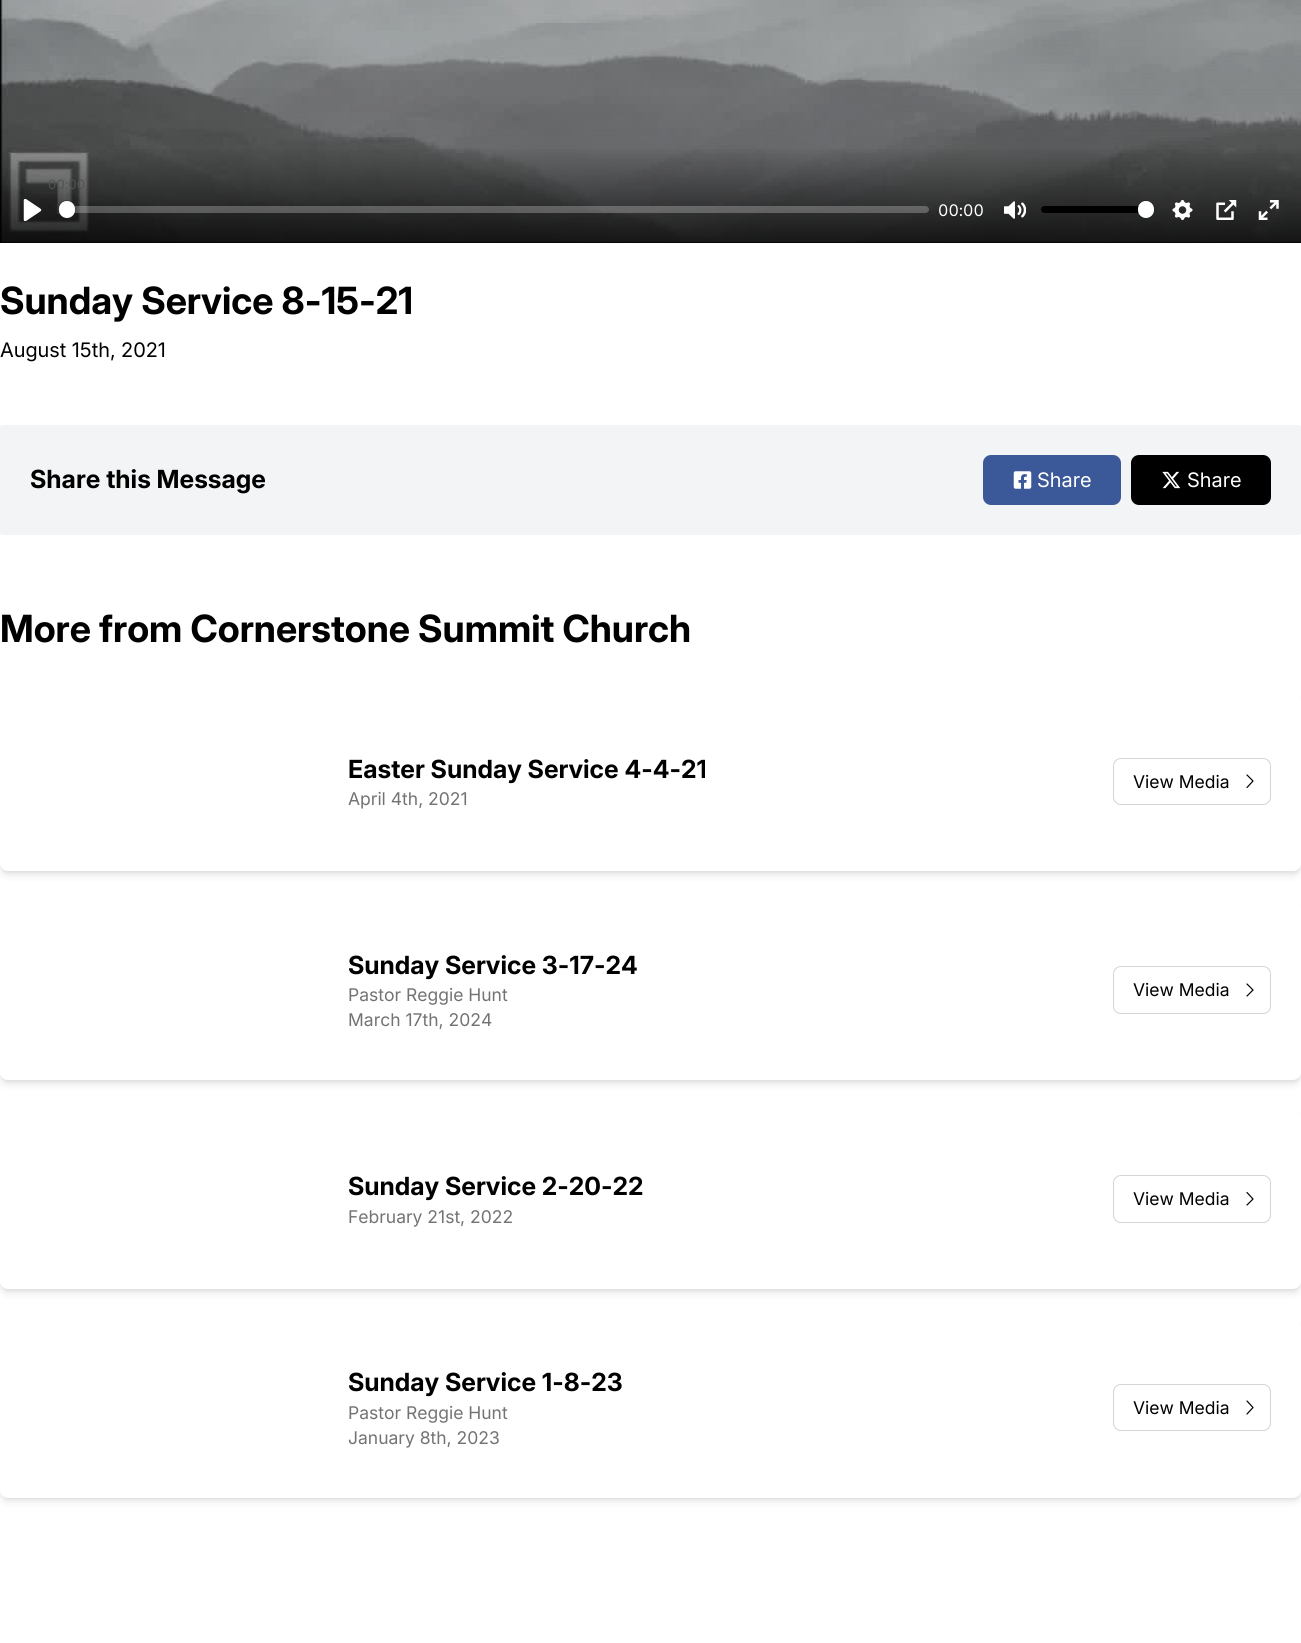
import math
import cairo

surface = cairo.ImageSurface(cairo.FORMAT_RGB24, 1301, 1643)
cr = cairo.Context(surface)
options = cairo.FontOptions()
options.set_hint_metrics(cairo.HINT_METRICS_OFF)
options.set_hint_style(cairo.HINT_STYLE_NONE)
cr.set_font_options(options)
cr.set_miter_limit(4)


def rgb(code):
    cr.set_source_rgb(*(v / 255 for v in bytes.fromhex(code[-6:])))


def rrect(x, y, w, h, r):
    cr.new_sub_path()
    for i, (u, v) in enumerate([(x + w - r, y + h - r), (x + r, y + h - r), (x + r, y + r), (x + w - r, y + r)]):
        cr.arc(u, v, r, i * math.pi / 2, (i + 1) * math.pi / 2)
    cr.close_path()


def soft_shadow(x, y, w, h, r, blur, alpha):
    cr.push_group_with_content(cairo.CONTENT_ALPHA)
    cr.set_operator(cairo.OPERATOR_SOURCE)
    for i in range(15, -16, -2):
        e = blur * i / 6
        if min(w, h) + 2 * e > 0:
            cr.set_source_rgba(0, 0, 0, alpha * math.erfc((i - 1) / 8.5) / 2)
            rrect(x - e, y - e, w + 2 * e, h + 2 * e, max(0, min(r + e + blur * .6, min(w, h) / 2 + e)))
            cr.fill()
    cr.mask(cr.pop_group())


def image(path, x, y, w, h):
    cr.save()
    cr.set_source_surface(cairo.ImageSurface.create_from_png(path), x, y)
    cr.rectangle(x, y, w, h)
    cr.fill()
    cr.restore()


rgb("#ffffff")
cr.paint()
rgb("#000000")
cr.rectangle(0, 242, 1301, 1)
cr.fill()
image("img/1.png", 0, 0, 1301, 243)
gradient = cairo.LinearGradient(651, 146, 651, 243)
gradient.add_color_stop_rgba(0, 0, 0, 0, 0)
gradient.add_color_stop_rgba(1, 0, 0, 0, 0.75)
cr.set_source(gradient)
cr.rectangle(1, 149, 1300, 94)
cr.fill()
cr.set_source_rgba(1, 1, 1, 0.25)
rrect(59, 206, 870, 7, 3.5)
cr.fill()
rrect(58.5, 200.5, 17, 18, 8.5)
cr.set_source_rgba(0.137, 0.157, 0.184, 0.2)
cr.set_line_width(1)
cr.stroke()
rgb("#23282f")
soft_shadow(59, 203, 16, 16, 8, 0.5, 0.15)
rgb("#ffffff")
rrect(59, 201, 16, 17, 8)
cr.fill()
image("img/2.png", 23, 199, 19, 22)
image("img/3.png", 1004, 201, 22, 18)
rgb("#000000")
rrect(1041, 206, 113, 7, 3.5)
cr.fill()
cr.arc(1145.5, 209.5, 9, 0, 2 * math.pi)
cr.set_source_rgba(0.137, 0.157, 0.184, 0.2)
cr.stroke()
rgb("#23282f")
soft_shadow(1138, 203, 16, 16, 8, 0.5, 0.15)
rgb("#ffffff")
rrect(1138, 201, 16, 17, 8)
cr.fill()
image("img/4.png", 1172, 200, 21, 20)
image("img/5.png", 1216, 200, 21, 20)
image("img/6.png", 1258, 200, 21, 20)
rgb("#f3f4f6")
rrect(0, 425, 1301, 110, 2.5)
cr.fill()
rgb("#3b5998")
rrect(983, 455, 138, 50, 8)
cr.fill()
image("img/7.png", 1013, 471, 19, 18)
rgb("#000000")
rrect(1131, 455, 140, 50, 8)
cr.fill()
image("img/8.png", 1162, 471, 19, 18)
rgb("#000000")
soft_shadow(3, 698, 1296, 173, 5, 2.5, 0.1)
soft_shadow(1, 699, 1299, 176, 6, 4, 0.1)
rgb("#ffffff")
rrect(0, 693, 1301, 178, 8)
cr.fill()
rrect(1113.5, 758.5, 157, 46, 7.5)
rgb("#d4d4d4")
cr.stroke()
cr.new_path()
cr.move_to(1247, 775)
cr.line_to(1253, 781)
cr.line_to(1247, 787.5)
rgb("#000000")
cr.set_line_width(1.2)
cr.set_line_cap(cairo.LINE_CAP_ROUND)
cr.set_line_join(cairo.LINE_JOIN_ROUND)
cr.stroke()
rgb("#000000")
soft_shadow(3, 906, 1296, 174, 5, 2.5, 0.1)
soft_shadow(1, 908, 1299, 176, 6, 4, 0.1)
rgb("#ffffff")
rrect(0, 901, 1301, 179, 8)
cr.fill()
rrect(1113.5, 966.5, 157, 47, 7.5)
rgb("#d4d4d4")
cr.set_line_width(1)
cr.set_line_cap(cairo.LINE_CAP_BUTT)
cr.set_line_join(cairo.LINE_JOIN_MITER)
cr.stroke()
cr.new_path()
cr.move_to(1247, 984)
cr.line_to(1253, 990)
cr.line_to(1247, 996)
rgb("#000000")
cr.set_line_width(1.2)
cr.set_line_cap(cairo.LINE_CAP_ROUND)
cr.set_line_join(cairo.LINE_JOIN_ROUND)
cr.stroke()
rgb("#000000")
soft_shadow(3, 1115, 1296, 174, 5, 2.5, 0.1)
soft_shadow(1, 1116, 1299, 177, 6, 4, 0.1)
rgb("#ffffff")
rrect(0, 1110, 1301, 179, 8)
cr.fill()
rrect(1113.5, 1175.5, 157, 47, 7.5)
rgb("#d4d4d4")
cr.set_line_width(1)
cr.set_line_cap(cairo.LINE_CAP_BUTT)
cr.set_line_join(cairo.LINE_JOIN_MITER)
cr.stroke()
cr.new_path()
cr.move_to(1247, 1192.5)
cr.line_to(1253, 1199)
cr.line_to(1247, 1205)
rgb("#000000")
cr.set_line_width(1.2)
cr.set_line_cap(cairo.LINE_CAP_ROUND)
cr.set_line_join(cairo.LINE_JOIN_ROUND)
cr.stroke()
rgb("#000000")
soft_shadow(3, 1324, 1296, 174, 5, 2.5, 0.1)
soft_shadow(1, 1325, 1299, 176, 6, 4, 0.1)
rgb("#ffffff")
rrect(0, 1319, 1301, 179, 8)
cr.fill()
rrect(1113.5, 1384.5, 157, 46, 7.5)
rgb("#d4d4d4")
cr.set_line_width(1)
cr.set_line_cap(cairo.LINE_CAP_BUTT)
cr.set_line_join(cairo.LINE_JOIN_MITER)
cr.stroke()
cr.new_path()
cr.move_to(1247, 1401)
cr.line_to(1253, 1407.5)
cr.line_to(1247, 1414)
rgb("#000000")
cr.set_line_width(1.2)
cr.set_line_cap(cairo.LINE_CAP_ROUND)
cr.set_line_join(cairo.LINE_JOIN_ROUND)
cr.stroke()
cr.select_font_face("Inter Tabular")
cr.set_font_size(13)
rgb("#515252")
cr.move_to(48, 189)
cr.show_text("00:00")
cr.set_font_size(16)
rgb("#ffffff")
cr.move_to(938, 216)
cr.show_text("00:00")
cr.select_font_face("Inter", cairo.FONT_SLANT_NORMAL, cairo.FONT_WEIGHT_BOLD)
cr.set_font_size(37.5)
rgb("#000000")
cr.move_to(0, 314)
cr.show_text("Sunday Service 8-15-21")
cr.select_font_face("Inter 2")
cr.set_font_size(20)
cr.move_to(0, 357)
cr.show_text("August 15th, 2021")
cr.select_font_face("Inter 2", cairo.FONT_SLANT_NORMAL, cairo.FONT_WEIGHT_BOLD)
cr.set_font_size(25)
cr.move_to(30, 488)
cr.show_text("Share this Message")
cr.select_font_face("Inter 2")
cr.set_font_size(20)
rgb("#ffffff")
cr.move_to(1037, 487)
cr.show_text("Share")
cr.move_to(1187, 487)
cr.show_text("Share")
cr.select_font_face("Inter", cairo.FONT_SLANT_NORMAL, cairo.FONT_WEIGHT_BOLD)
cr.set_font_size(37.5)
rgb("#000000")
cr.move_to(0, 642)
cr.show_text("More from Cornerstone Summit Church")
cr.select_font_face("Inter 2", cairo.FONT_SLANT_NORMAL, cairo.FONT_WEIGHT_BOLD)
cr.set_font_size(25)
cr.move_to(348, 778)
cr.show_text("Easter Sunday Service 4-4-21")
cr.select_font_face("Inter")
cr.set_font_size(17.5)
rgb("#737373")
cr.move_to(348, 805)
cr.show_text("April 4th, 2021")
rgb("#000000")
cr.move_to(1133, 788)
cr.show_text("View Media")
cr.select_font_face("Inter 2", cairo.FONT_SLANT_NORMAL, cairo.FONT_WEIGHT_BOLD)
cr.set_font_size(25)
cr.move_to(348, 974)
cr.show_text("Sunday Service 3-17-24")
cr.select_font_face("Inter")
cr.set_font_size(17.5)
rgb("#737373")
cr.move_to(348, 1001)
cr.show_text("Pastor Reggie Hunt")
cr.move_to(348, 1026)
cr.show_text("March 17th, 2024")
rgb("#000000")
cr.move_to(1133, 996)
cr.show_text("View Media")
cr.select_font_face("Inter 2", cairo.FONT_SLANT_NORMAL, cairo.FONT_WEIGHT_BOLD)
cr.set_font_size(25)
cr.move_to(348, 1195)
cr.show_text("Sunday Service 2-20-22")
cr.select_font_face("Inter")
cr.set_font_size(17.5)
rgb("#737373")
cr.move_to(348, 1223)
cr.show_text("February 21st, 2022")
rgb("#000000")
cr.move_to(1133, 1205)
cr.show_text("View Media")
cr.select_font_face("Inter 2", cairo.FONT_SLANT_NORMAL, cairo.FONT_WEIGHT_BOLD)
cr.set_font_size(25)
cr.move_to(348, 1391)
cr.show_text("Sunday Service 1-8-23")
cr.select_font_face("Inter")
cr.set_font_size(17.5)
rgb("#737373")
cr.move_to(348, 1419)
cr.show_text("Pastor Reggie Hunt")
cr.move_to(348, 1444)
cr.show_text("January 8th, 2023")
rgb("#000000")
cr.move_to(1133, 1414)
cr.show_text("View Media")
surface.write_to_png("page.png")
